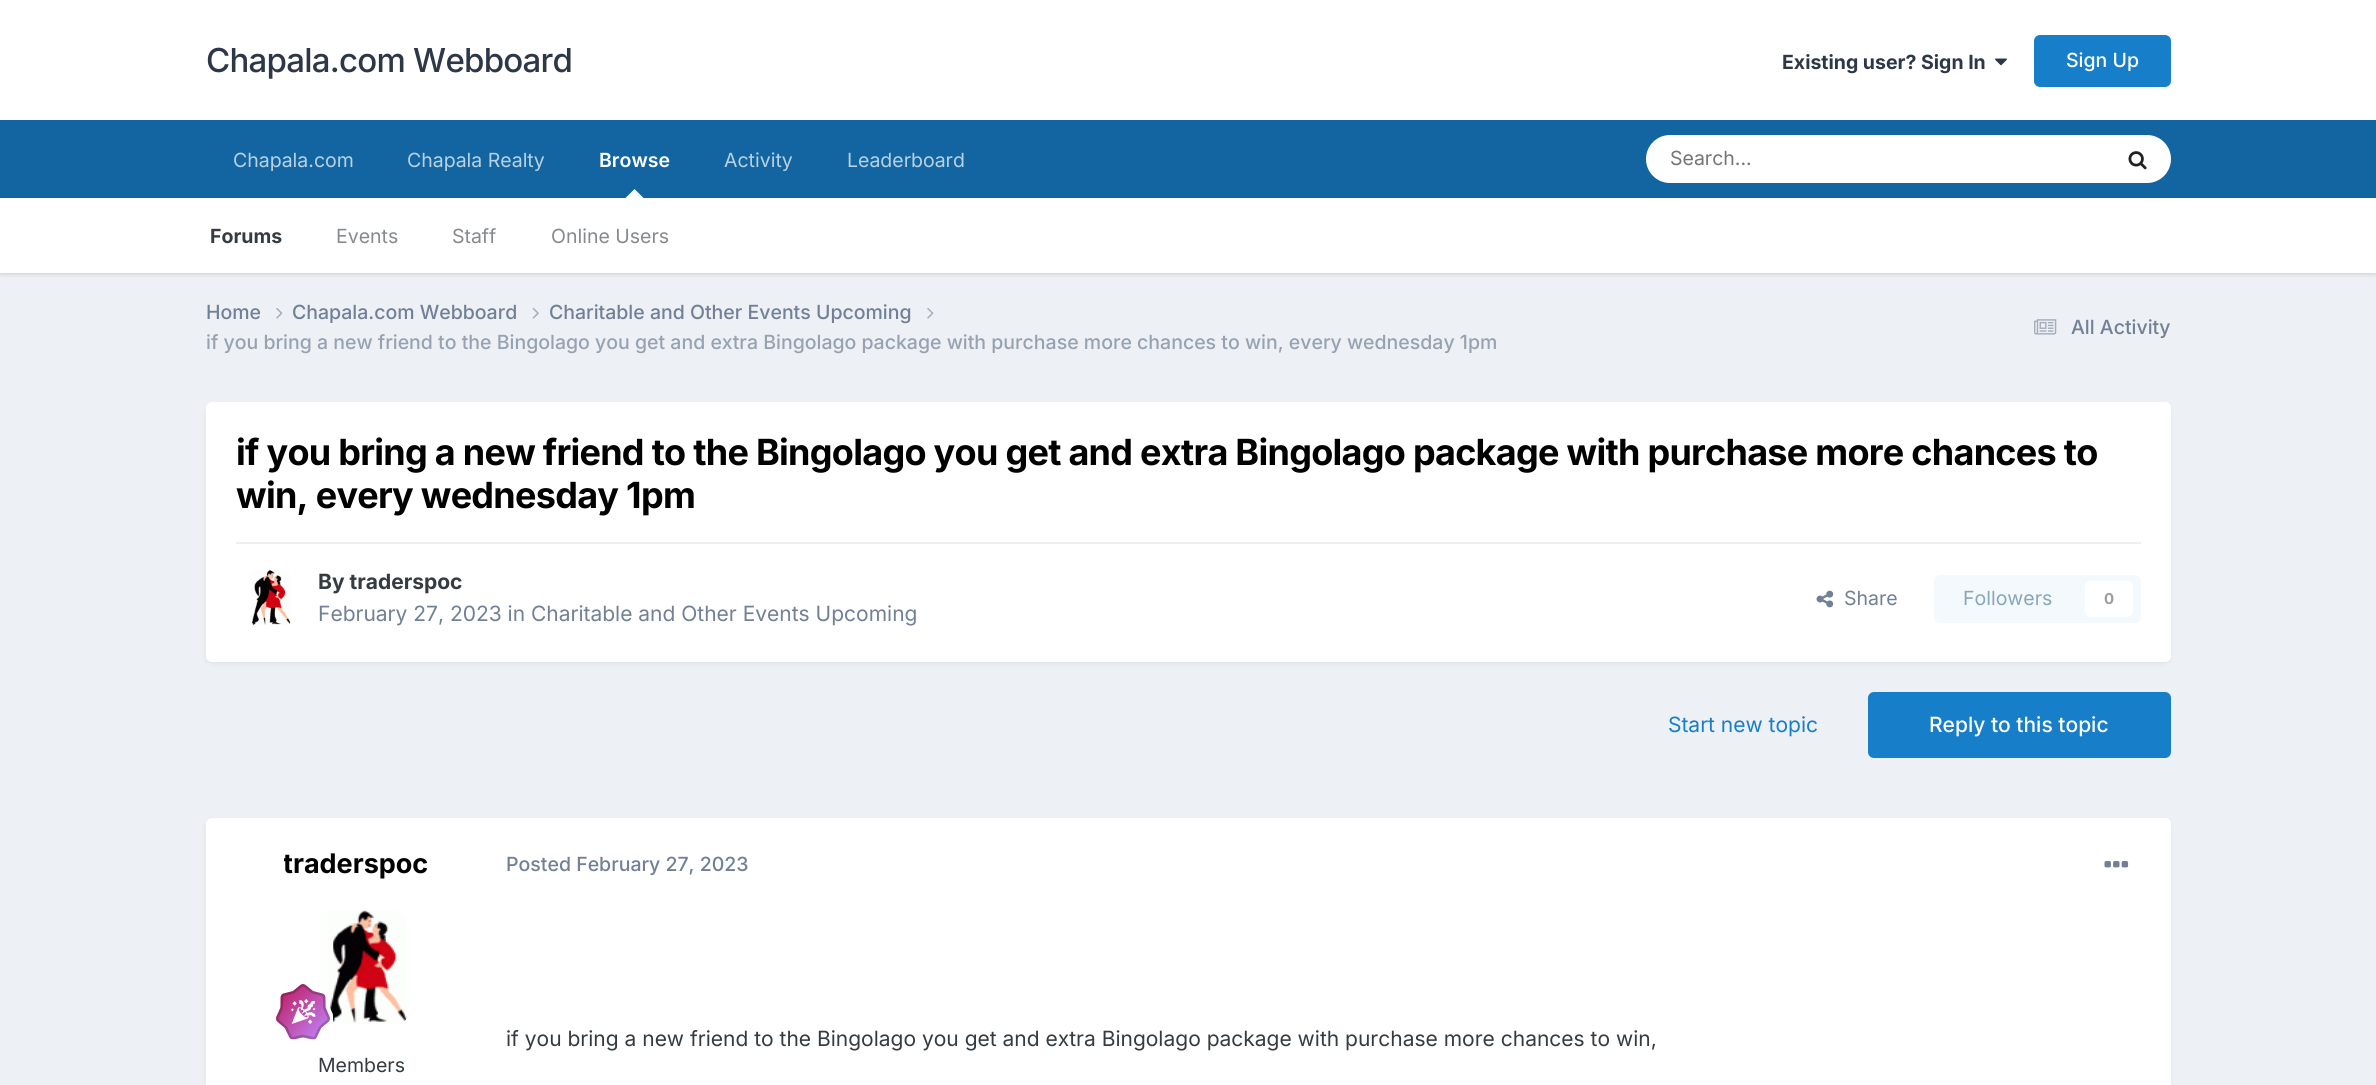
import math
import cairo

surface = cairo.ImageSurface(cairo.FORMAT_RGB24, 2376, 1085)
cr = cairo.Context(surface)
options = cairo.FontOptions()
options.set_hint_metrics(cairo.HINT_METRICS_OFF)
options.set_hint_style(cairo.HINT_STYLE_NONE)
cr.set_font_options(options)
cr.set_miter_limit(4)


def rgb(code):
    cr.set_source_rgb(*(v / 255 for v in bytes.fromhex(code[-6:])))


def tracked(x, y, s, letter, word):
    cr.move_to(x, y)
    for ch in s:
        cr.show_text(ch)
        cr.rel_move_to(letter + word * (ch == ' '), 0)


def rrect(x, y, w, h, r):
    cr.new_sub_path()
    for i, (u, v) in enumerate([(x + w - r, y + h - r), (x + r, y + h - r), (x + r, y + r), (x + w - r, y + r)]):
        cr.arc(u, v, r, i * math.pi / 2, (i + 1) * math.pi / 2)
    cr.close_path()


def soft_shadow(x, y, w, h, r, blur, alpha):
    cr.push_group_with_content(cairo.CONTENT_ALPHA)
    cr.set_operator(cairo.OPERATOR_SOURCE)
    for i in range(15, -16, -2):
        e = blur * i / 6
        if min(w, h) + 2 * e > 0:
            cr.set_source_rgba(0, 0, 0, alpha * math.erfc((i - 1) / 8.5) / 2)
            rrect(x - e, y - e, w + 2 * e, h + 2 * e, max(0, min(r + e + blur * .6, min(w, h) / 2 + e)))
            cr.fill()
    cr.mask(cr.pop_group())


def image(path, x, y, w, h):
    cr.save()
    cr.set_source_surface(cairo.ImageSurface.create_from_png(path), x, y)
    cr.rectangle(x, y, w, h)
    cr.fill()
    cr.restore()


rgb("#edf0f4")
cr.paint()
rgb("#ffffff")
cr.rectangle(0, 0, 2376, 120)
cr.fill()
image("img/1.png", 1995, 58, 12, 8)
rgb("#177ec9")
rrect(2034, 35, 137, 52, 6)
cr.fill()
rgb("#1265a1")
cr.rectangle(0, 120, 2376, 78)
cr.fill()
rgb("#000000")
soft_shadow(0, 200, 2376, 75, 0, 1.5, 0.1)
rgb("#ffffff")
cr.new_path()
cr.move_to(643.5, 198)
cr.line_to(625.5, 198)
cr.line_to(634.5, 189)
cr.close_path()
cr.fill()
rrect(1646, 135, 525, 48, 24)
cr.fill()
image("img/2.png", 2128, 151, 19, 19)
cr.rectangle(0, 198, 2376, 75)
cr.fill()
image("img/3.png", 276, 308, 7, 11)
image("img/4.png", 532, 307, 7, 12)
image("img/3.png", 927, 308, 7, 11)
image("img/5.png", 2034, 319, 23, 16)
rgb("#2d3748")
soft_shadow(207, 407, 1962, 256, 5, 3, 0.1)
rgb("#ffffff")
rrect(206, 402, 1965, 260, 6)
cr.fill()
rgb("#efeff0")
cr.rectangle(236, 542, 1905, 2)
cr.fill()
image("img/6.png", 251, 570, 40, 55)
image("img/7.png", 1816, 590, 18, 18)
rgb("#f4f9fd")
rrect(1934, 575, 207, 48, 6)
cr.fill()
rgb("#ffffff")
rrect(2085, 581, 48, 36, 6)
cr.fill()
rgb("#177ec9")
rrect(1868, 692, 303, 66, 6)
cr.fill()
rgb("#2d3748")
soft_shadow(207, 822, 1962, 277, 5, 3, 0.1)
rgb("#ffffff")
rrect(206, 818, 1965, 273, 6)
cr.fill()
image("img/9.png", 326, 910, 81, 114)
image("img/8.png", 276, 984, 57, 56)
image("img/10.png", 2104, 861, 25, 7)
cr.select_font_face("Inter Medium")
cr.set_font_size(33)
rgb("#2d3748")
tracked(206, 72, "Chapala.com Webboard", -0.75, 0)
cr.select_font_face("Inter", cairo.FONT_SLANT_NORMAL, cairo.FONT_WEIGHT_BOLD)
cr.set_font_size(19.5)
cr.move_to(1782, 69)
cr.show_text("Existing user? Sign In")
cr.select_font_face("Inter Medium")
rgb("#ffffff")
cr.move_to(2066, 67)
cr.show_text("Sign Up")
cr.select_font_face("Inter SemiBold")
cr.move_to(599, 167)
cr.show_text("Browse")
cr.select_font_face("Inter", cairo.FONT_SLANT_NORMAL, cairo.FONT_WEIGHT_BOLD)
rgb("#353c41")
cr.move_to(210, 243)
cr.show_text("Forums")
cr.select_font_face("Inter")
rgb("#868a8d")
for x, y, s in [
    (336, 243, "Events"),
    (452, 243, "Staff"),
    (551, 243, "Online Users"),
]:
    cr.move_to(x, y)
    cr.show_text(s)
rgb("#b8d1e3")
for x, y, s in [
    (233, 167, "Chapala.com"),
    (407, 167, "Chapala Realty"),
    (724, 167, "Activity"),
    (847, 167, "Leaderboard"),
]:
    cr.move_to(x, y)
    cr.show_text(s)
rgb("#757575")
cr.move_to(1670, 165)
cr.show_text("Search...")
cr.select_font_face("Inter Medium")
rgb("#718096")
for x, y, s in [
    (206, 319, "Home"),
    (292, 319, "Chapala.com Webboard"),
    (549, 319, "Charitable and Other Events Upcoming"),
]:
    cr.move_to(x, y)
    cr.show_text(s)
rgb("#96a2b2")
cr.move_to(206, 349)
cr.show_text("if you bring a new friend to the Bingolago you get and extra Bingolago package with purchase more chances to win, every wednesday 1pm")
rgb("#718096")
cr.move_to(2071, 334)
cr.show_text("All Activity")
cr.select_font_face("Inter", cairo.FONT_SLANT_NORMAL, cairo.FONT_WEIGHT_BOLD)
cr.set_font_size(36)
rgb("#000000")
tracked(236, 465, "if you bring a new friend to the Bingolago you get and extra Bingolago package with purchase more chances to", -0.72, 0)
tracked(236, 508, "win, every wednesday 1pm", -0.72, 0)
cr.set_font_size(21)
rgb("#353c41")
cr.move_to(318, 589)
cr.show_text("By traderspoc")
cr.select_font_face("Inter")
rgb("#718096")
cr.move_to(318, 621)
cr.show_text("February 27, 2023 in Charitable and Other Events Upcoming")
cr.set_font_size(19.5)
cr.move_to(1844, 605)
cr.show_text("Share")
rgb("#87a6bc")
cr.move_to(1963, 605)
cr.show_text("Followers")
cr.select_font_face("Inter", cairo.FONT_SLANT_NORMAL, cairo.FONT_WEIGHT_BOLD)
cr.set_font_size(15)
rgb("#9a9ea0")
cr.move_to(2104, 604)
cr.show_text("0")
cr.select_font_face("Inter")
cr.set_font_size(21)
rgb("#177ec9")
cr.move_to(1668, 732)
cr.show_text("Start new topic")
cr.select_font_face("Inter Medium")
rgb("#ffffff")
cr.move_to(1929, 732)
cr.show_text("Reply to this topic")
cr.save()
cr.rectangle(284, 848, 144, 31)
cr.clip()
cr.select_font_face("Inter", cairo.FONT_SLANT_NORMAL, cairo.FONT_WEIGHT_BOLD)
cr.set_font_size(27)
rgb("#000000")
cr.move_to(283, 873)
cr.show_text("traderspoc")
cr.restore()
cr.select_font_face("Inter")
cr.set_font_size(19.5)
rgb("#353c41")
cr.move_to(318, 1072)
cr.show_text("Members")
cr.select_font_face("Inter Medium")
rgb("#718096")
cr.move_to(506, 871)
cr.show_text("Posted February 27, 2023")
cr.select_font_face("Inter")
cr.set_font_size(21)
rgb("#353c41")
cr.move_to(506, 1046)
cr.show_text("if you bring a new friend to the Bingolago you get and extra Bingolago package with purchase more chances to win,")
surface.write_to_png("page.png")
